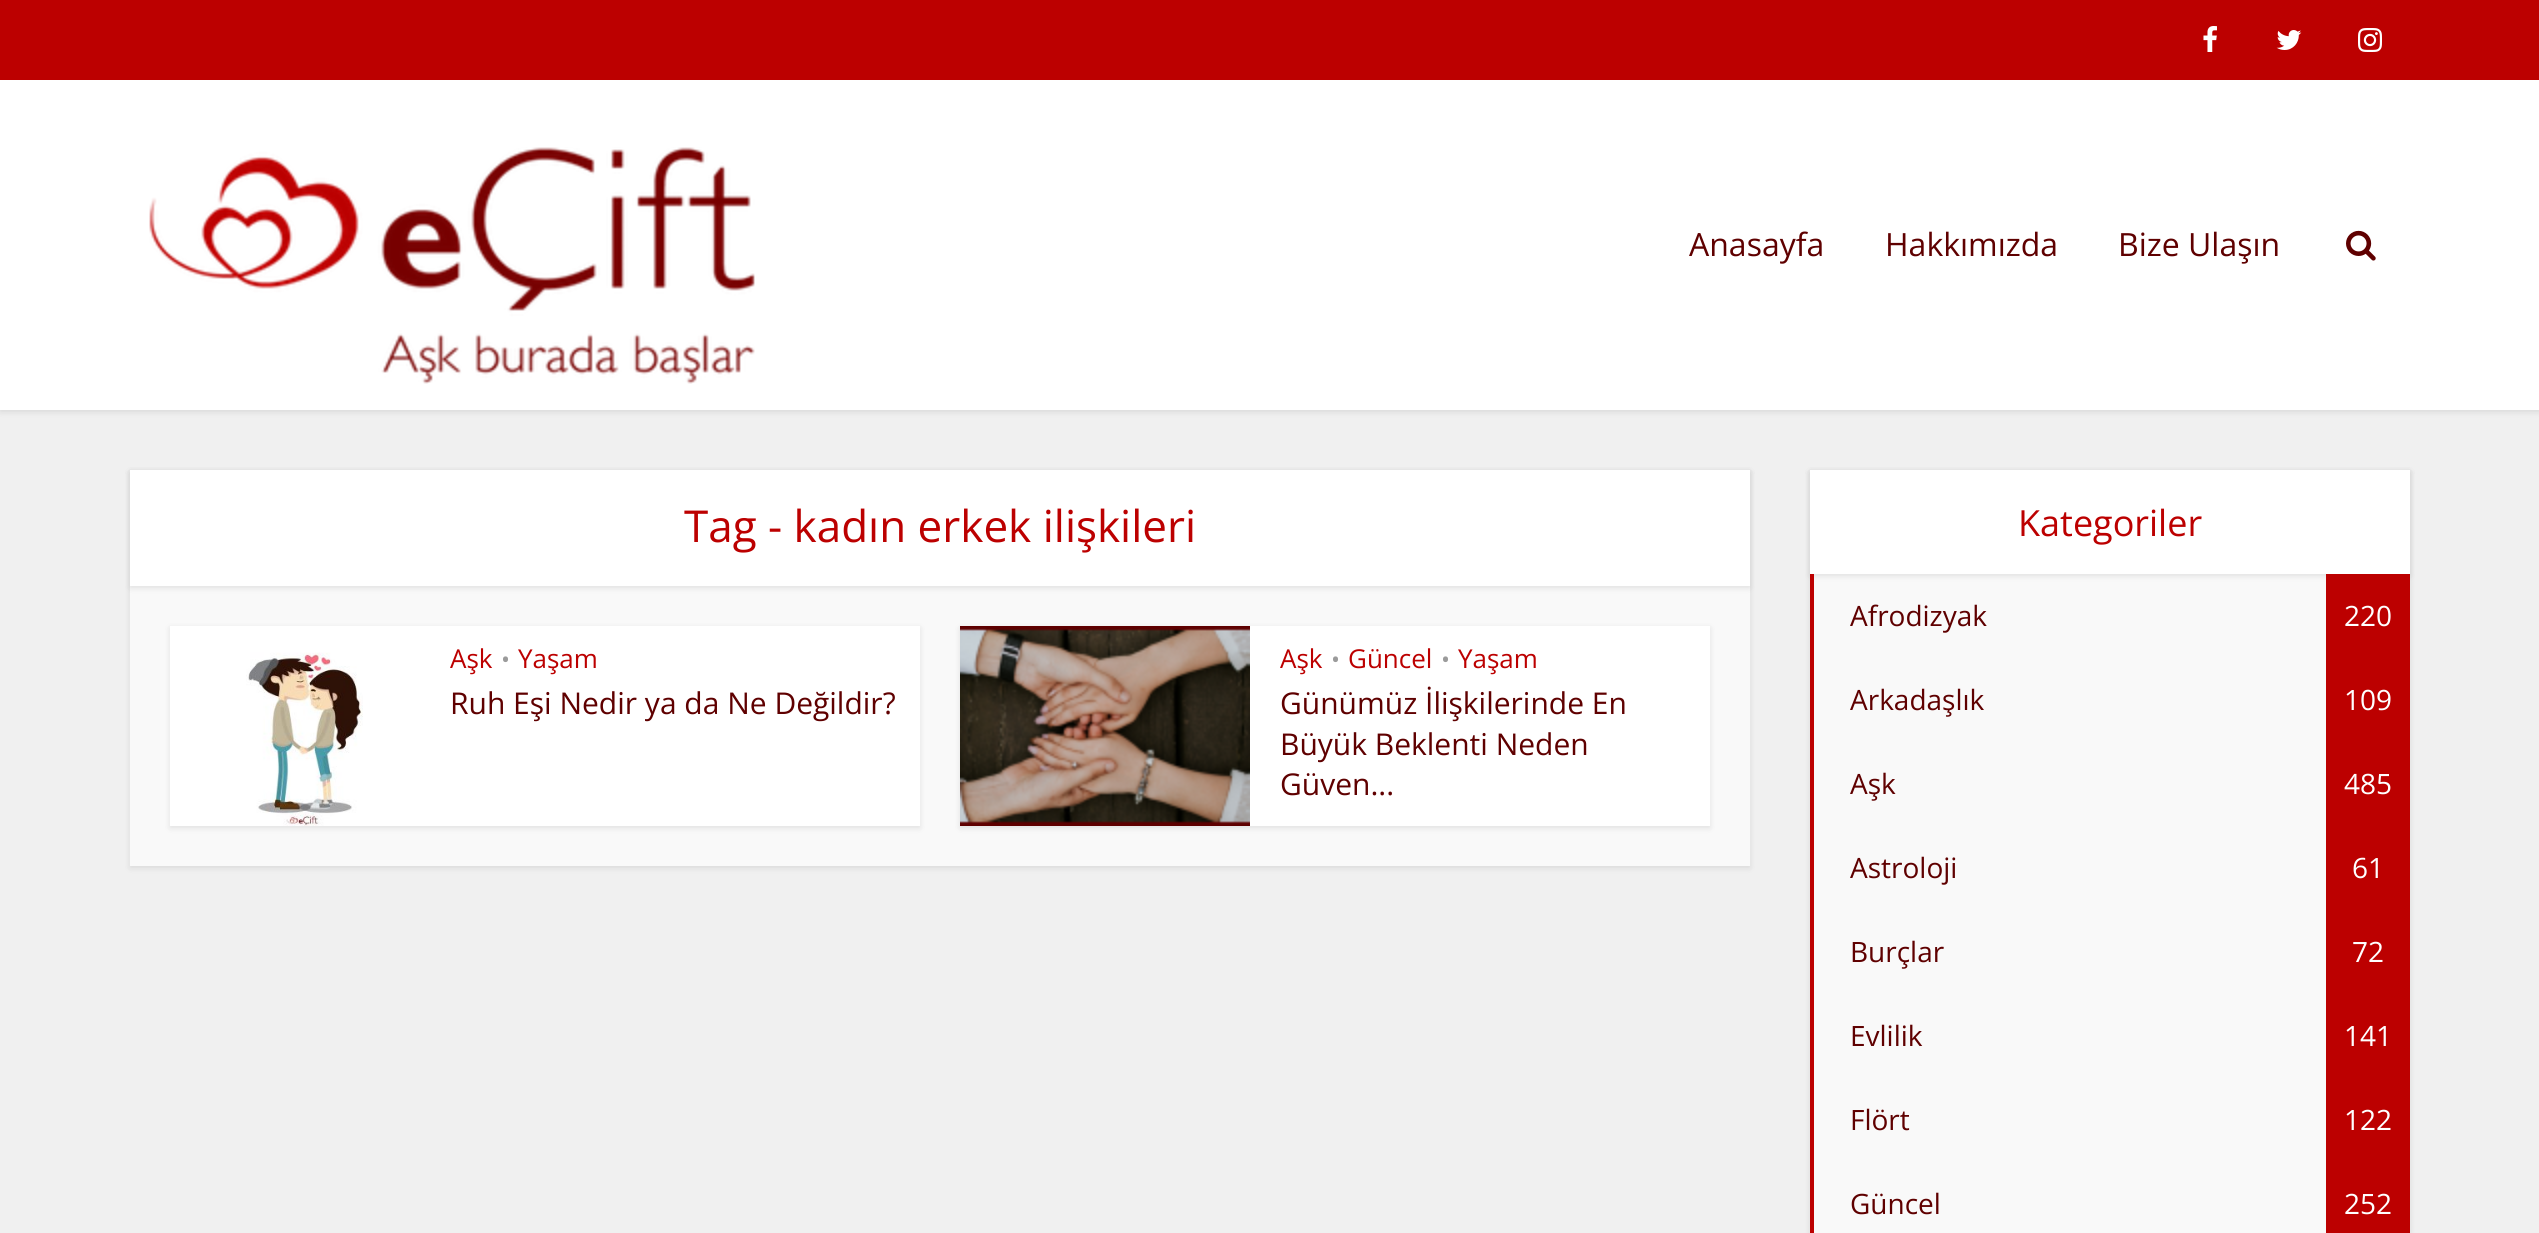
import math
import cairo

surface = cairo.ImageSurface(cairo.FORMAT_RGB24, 2539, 1233)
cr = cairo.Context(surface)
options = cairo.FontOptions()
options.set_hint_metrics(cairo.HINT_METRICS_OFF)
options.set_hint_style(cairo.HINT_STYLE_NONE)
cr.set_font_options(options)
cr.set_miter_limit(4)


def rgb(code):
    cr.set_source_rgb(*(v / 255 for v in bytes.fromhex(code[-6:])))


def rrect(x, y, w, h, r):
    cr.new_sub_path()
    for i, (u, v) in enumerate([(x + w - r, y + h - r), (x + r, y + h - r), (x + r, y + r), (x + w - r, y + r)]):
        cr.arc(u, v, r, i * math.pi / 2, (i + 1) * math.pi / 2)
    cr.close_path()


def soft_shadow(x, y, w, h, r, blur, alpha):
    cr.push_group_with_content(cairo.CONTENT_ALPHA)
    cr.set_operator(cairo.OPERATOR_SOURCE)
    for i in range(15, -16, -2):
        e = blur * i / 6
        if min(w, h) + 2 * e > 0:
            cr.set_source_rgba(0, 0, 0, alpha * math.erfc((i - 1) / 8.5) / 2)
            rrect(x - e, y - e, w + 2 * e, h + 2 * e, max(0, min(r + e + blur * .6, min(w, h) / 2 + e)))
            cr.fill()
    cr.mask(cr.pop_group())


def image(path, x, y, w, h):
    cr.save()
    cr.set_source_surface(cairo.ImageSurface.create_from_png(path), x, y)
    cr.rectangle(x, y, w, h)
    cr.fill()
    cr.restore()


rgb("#f0f0f0")
cr.paint()
rgb("#000000")
soft_shadow(0, 2, 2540, 410, 0, 3, 0.1)
rgb("#ffffff")
cr.rectangle(0, 80, 2539, 330)
cr.fill()
rgb("#bc0000")
cr.rectangle(0, 0, 2539, 80)
cr.fill()
image("img/1.png", 2203, 26, 14, 26)
image("img/2.png", 2276, 30, 26, 20)
image("img/3.png", 2358, 28, 24, 24)
image("img/4.png", 149, 147, 606, 237)
image("img/5.png", 2346, 230, 30, 31)
rgb("#000000")
soft_shadow(130, 472, 1620, 396, 0, 3, 0.1)
rgb("#f9f9f9")
cr.rectangle(130, 586, 1620, 280)
cr.fill()
rgb("#000000")
soft_shadow(130, 472, 1620, 116, 0, 3, 0.1)
rgb("#ffffff")
cr.rectangle(130, 470, 1620, 116)
cr.fill()
rgb("#000000")
soft_shadow(170, 628, 750, 200, 0, 3, 0.1)
rgb("#ffffff")
cr.rectangle(170, 626, 750, 200)
cr.fill()
image("img/6.png", 246, 652, 117, 174)
rgb("#000000")
soft_shadow(960, 628, 750, 200, 0, 3, 0.1)
rgb("#ffffff")
cr.rectangle(1250, 626, 460, 200)
cr.fill()
image("img/7.png", 960, 626, 290, 200)
rgb("#000000")
soft_shadow(1810, 472, 600, 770, 0, 3, 0.1)
rgb("#f9f9f9")
cr.rectangle(1814, 574, 512, 659)
cr.fill()
rgb("#000000")
soft_shadow(1810, 472, 600, 104, 0, 3, 0.1)
for x, y, w, h, color in [
    (1810, 470, 600, 104, "#ffffff"),
    (1810, 574, 4, 659, "#bc0000"),
    (2326, 574, 84, 659, "#bc0000"),
]:
    rgb(color)
    cr.rectangle(x, y, w, h)
    cr.fill()
cr.select_font_face("Open Sans")
cr.set_font_size(32)
rgb("#5f0000")
for x, y, s in [
    (1689, 256, "Anasayfa"),
    (1885, 256, "Hakkımızda"),
    (2118, 256, "Bize Ulaşın"),
]:
    cr.move_to(x, y)
    cr.show_text(s)
cr.set_font_size(44)
rgb("#bc0000")
cr.move_to(684, 542)
cr.show_text("Tag - kadın erkek ilişkileri")
cr.set_font_size(26)
cr.move_to(450, 668)
cr.show_text("Aşk")
cr.set_font_size(24)
rgb("#9b9b9b")
cr.move_to(501, 668)
cr.show_text("•")
cr.set_font_size(26)
rgb("#bc0000")
cr.move_to(518, 668)
cr.show_text("Yaşam")
cr.set_font_size(30)
rgb("#5f0000")
cr.move_to(450, 714)
cr.show_text("Ruh Eşi Nedir ya da Ne Değildir?")
cr.set_font_size(26)
rgb("#bc0000")
cr.move_to(1280, 668)
cr.show_text("Aşk")
cr.set_font_size(24)
rgb("#9b9b9b")
cr.move_to(1331, 668)
cr.show_text("•")
cr.set_font_size(26)
rgb("#bc0000")
cr.move_to(1348, 668)
cr.show_text("Güncel")
cr.set_font_size(24)
rgb("#9b9b9b")
cr.move_to(1441, 668)
cr.show_text("•")
cr.set_font_size(26)
rgb("#bc0000")
cr.move_to(1458, 668)
cr.show_text("Yaşam")
cr.set_font_size(30)
rgb("#5f0000")
for x, y, s in [
    (1280, 714, "Günümüz İlişkilerinde En"),
    (1280, 755, "Büyük Beklenti Neden"),
    (1280, 795, "Güven..."),
]:
    cr.move_to(x, y)
    cr.show_text(s)
cr.set_font_size(36)
rgb("#bc0000")
cr.move_to(2018, 536)
cr.show_text("Kategoriler")
cr.set_font_size(28)
rgb("#5f0000")
cr.move_to(1850, 626)
cr.show_text("Afrodizyak")
rgb("#ffffff")
cr.move_to(2344, 626)
cr.show_text("220")
rgb("#5f0000")
cr.move_to(1850, 710)
cr.show_text("Arkadaşlık")
rgb("#ffffff")
cr.move_to(2344, 710)
cr.show_text("109")
rgb("#5f0000")
cr.move_to(1850, 794)
cr.show_text("Aşk")
rgb("#ffffff")
cr.move_to(2344, 794)
cr.show_text("485")
rgb("#5f0000")
cr.move_to(1850, 878)
cr.show_text("Astroloji")
rgb("#ffffff")
cr.move_to(2352, 878)
cr.show_text("61")
rgb("#5f0000")
cr.move_to(1850, 962)
cr.show_text("Burçlar")
rgb("#ffffff")
cr.move_to(2352, 962)
cr.show_text("72")
rgb("#5f0000")
cr.move_to(1850, 1046)
cr.show_text("Evlilik")
rgb("#ffffff")
cr.move_to(2344, 1046)
cr.show_text("141")
rgb("#5f0000")
cr.move_to(1850, 1130)
cr.show_text("Flört")
rgb("#ffffff")
cr.move_to(2344, 1130)
cr.show_text("122")
rgb("#5f0000")
cr.move_to(1850, 1214)
cr.show_text("Güncel")
rgb("#ffffff")
cr.move_to(2344, 1214)
cr.show_text("252")
surface.write_to_png("page.png")
